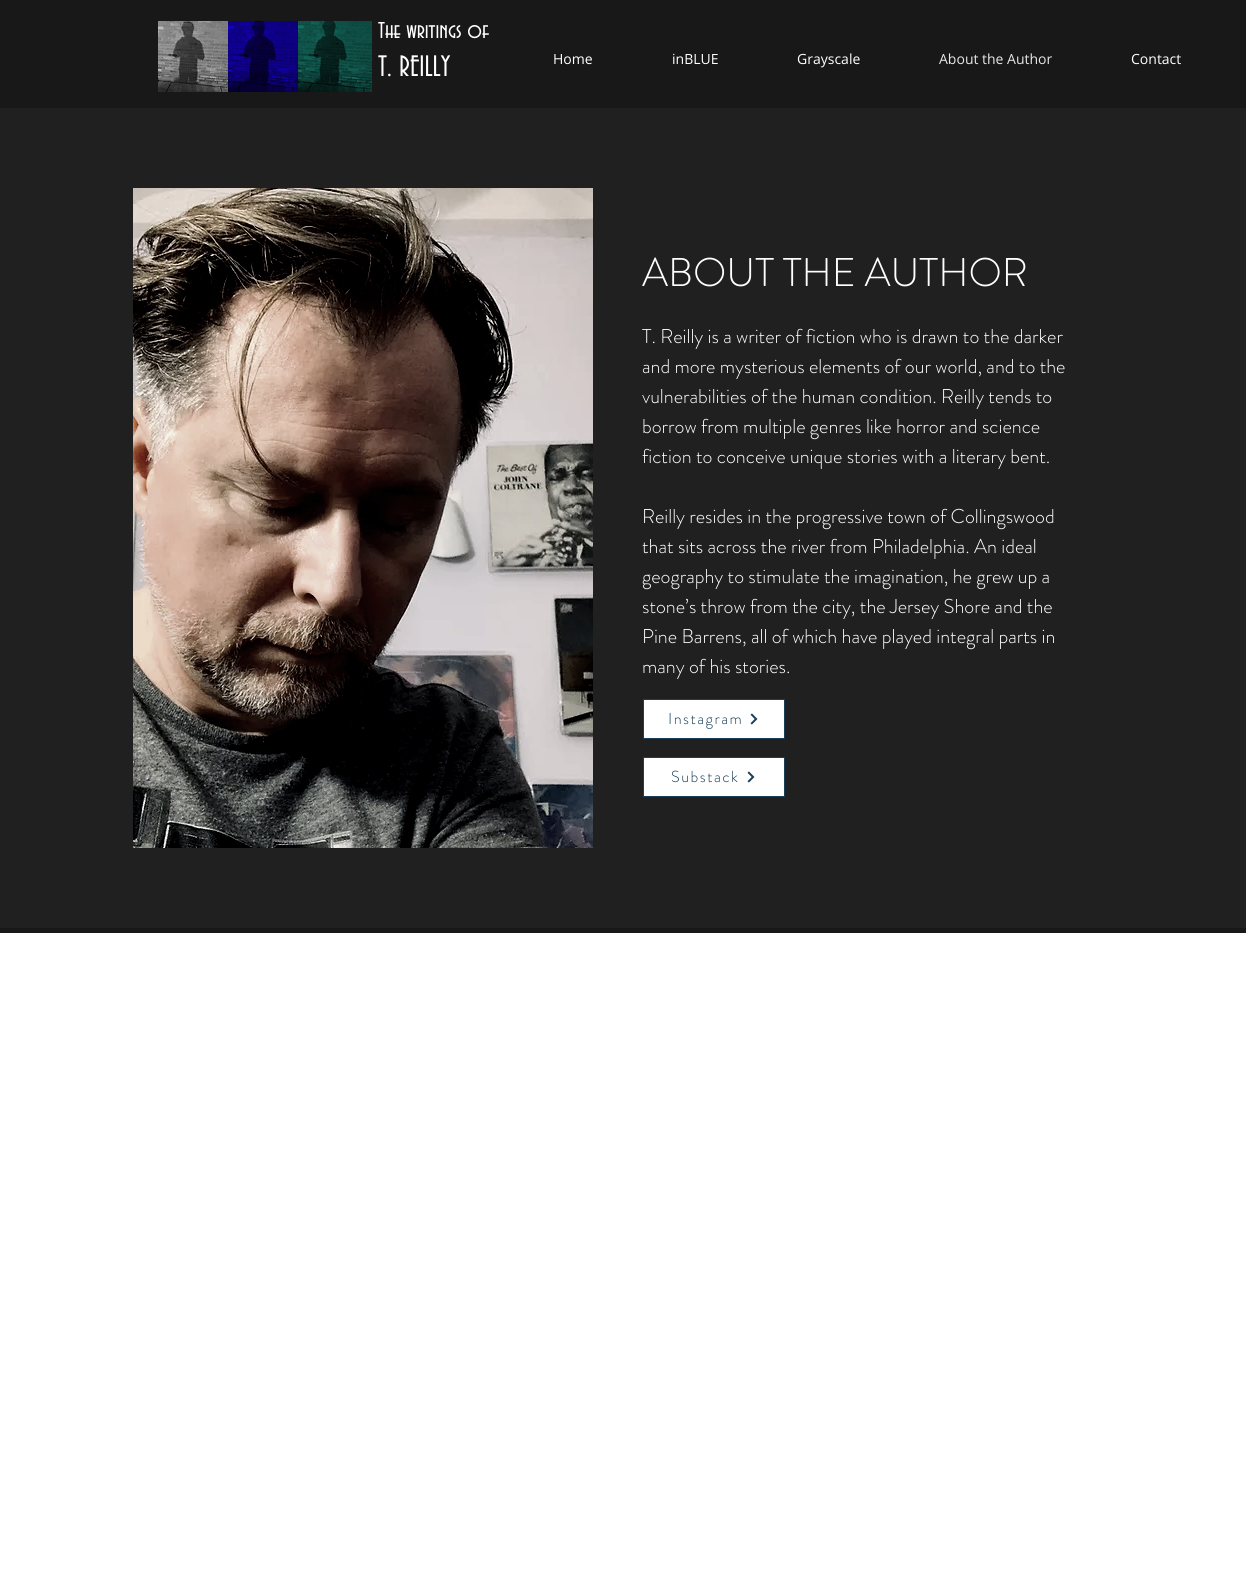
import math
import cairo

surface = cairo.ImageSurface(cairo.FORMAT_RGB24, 1246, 1588)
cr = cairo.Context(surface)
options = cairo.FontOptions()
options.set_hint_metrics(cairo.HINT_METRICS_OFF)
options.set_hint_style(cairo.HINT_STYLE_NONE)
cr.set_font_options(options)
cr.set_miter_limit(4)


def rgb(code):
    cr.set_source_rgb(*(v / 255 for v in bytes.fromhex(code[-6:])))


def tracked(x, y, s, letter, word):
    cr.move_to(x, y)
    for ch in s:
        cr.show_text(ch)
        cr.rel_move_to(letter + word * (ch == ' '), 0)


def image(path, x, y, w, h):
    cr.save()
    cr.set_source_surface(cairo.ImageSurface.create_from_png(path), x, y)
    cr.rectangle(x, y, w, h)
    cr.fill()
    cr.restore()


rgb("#ffffff")
cr.paint()
rgb("#181818")
cr.rectangle(0, 0, 1246, 108)
cr.fill()
image("img/1.png", 158, 21, 70, 71)
image("img/2.png", 228, 21, 70, 71)
image("img/3.png", 298, 21, 74, 71)
rgb("#202020")
cr.rectangle(0, 108, 1246, 820)
cr.fill()
image("img/4.png", 133, 188, 460, 660)
rgb("#ffffff")
cr.rectangle(643.5, 699.5, 141, 39)
cr.fill_preserve()
rgb("#194056")
cr.set_line_width(1)
cr.stroke()
image("img/5.png", 750, 713, 8, 12)
rgb("#ffffff")
cr.rectangle(643.5, 757.5, 141, 39)
cr.fill_preserve()
rgb("#194056")
cr.stroke()
image("img/5.png", 747, 771, 8, 12)
rgb("#181818")
cr.rectangle(0, 928, 1246, 5)
cr.fill()
cr.select_font_face("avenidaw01")
cr.set_font_size(24)
rgb("#ffffff")
cr.move_to(378, 38)
cr.show_text("The writings of")
cr.set_font_size(31)
cr.move_to(378, 76)
cr.show_text("T. REILLY")
cr.select_font_face("Open Sans")
cr.set_font_size(14)
for x, y, s in [
    (553, 64, "Home"),
    (672, 64, "inBLUE"),
    (797, 64, "Grayscale"),
]:
    cr.move_to(x, y)
    cr.show_text(s)
rgb("#e7e7e7")
cr.move_to(939, 64)
cr.show_text("About the Author")
rgb("#ffffff")
cr.move_to(1131, 64)
cr.show_text("Contact")
cr.select_font_face("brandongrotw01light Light")
cr.set_font_size(40)
cr.move_to(642, 286)
cr.show_text("ABOUT THE AUTHOR")
cr.set_font_size(20)
for x, y, s in [
    (642, 343, "T. Reilly is a writer of fiction who is drawn to the darker"),
    (642, 373, "and more mysterious elements of our world, and to the"),
    (642, 403, "vulnerabilities of the human condition. Reilly tends to"),
    (642, 433, "borrow from multiple genres like horror and science"),
    (642, 463, "fiction to conceive unique stories with a literary bent."),
    (642, 523, "Reilly resides in the progressive town of Collingswood"),
    (642, 553, "that sits across the river from Philadelphia. An ideal"),
    (642, 583, "geography to stimulate the imagination, he grew up a"),
    (642, 613, "stone’s throw from the city, the Jersey Shore and the"),
    (642, 643, "Pine Barrens, all of which have played integral parts in"),
    (642, 673, "many of his stories."),
]:
    cr.move_to(x, y)
    cr.show_text(s)
cr.set_font_size(16)
rgb("#194056")
tracked(668, 724, "Instagram", 1.5, 0)
tracked(671, 782, "Substack", 1.5, 0)
surface.write_to_png("page.png")
